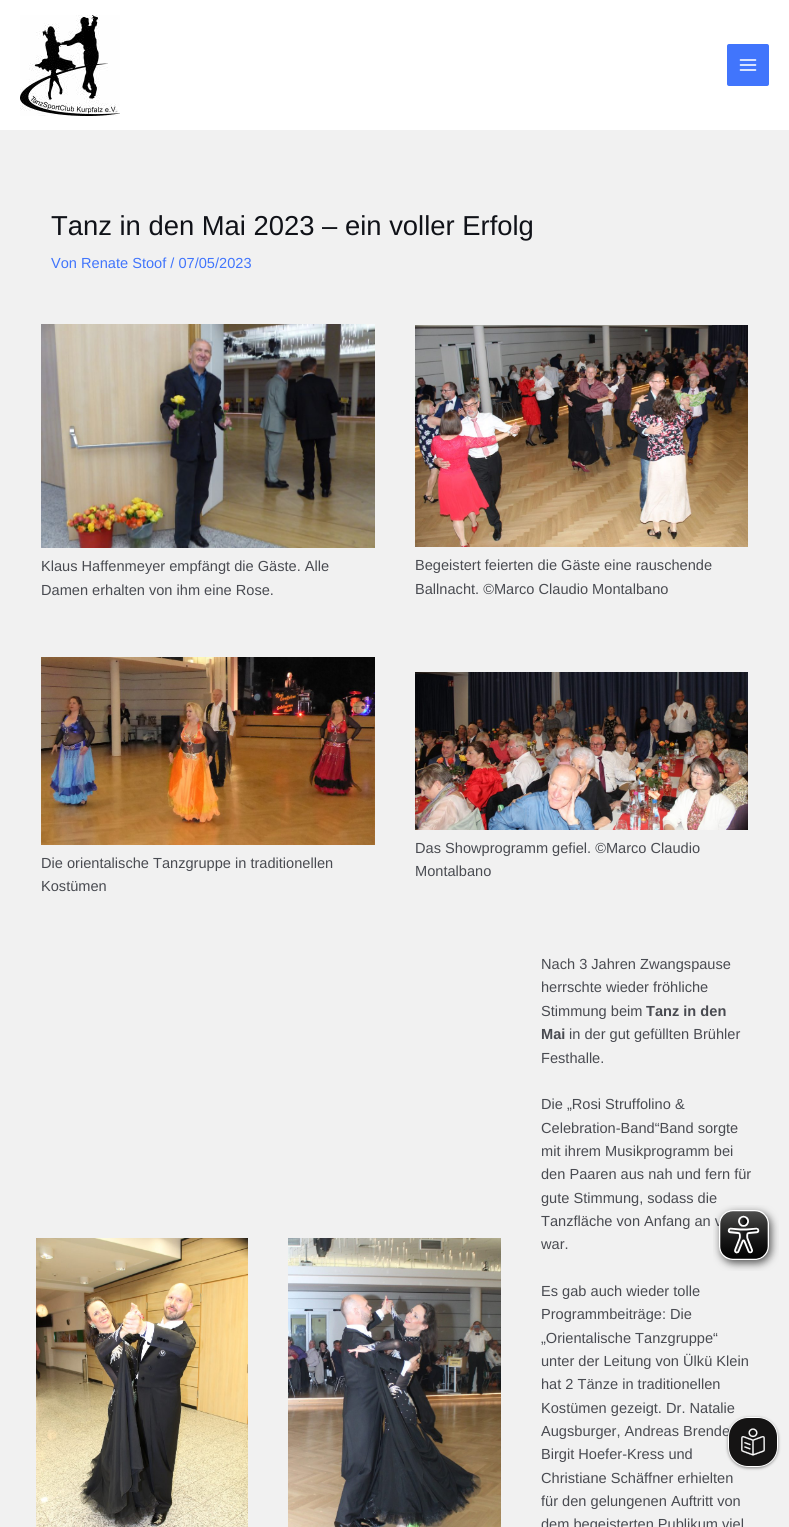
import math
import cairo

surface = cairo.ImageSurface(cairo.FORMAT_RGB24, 789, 1527)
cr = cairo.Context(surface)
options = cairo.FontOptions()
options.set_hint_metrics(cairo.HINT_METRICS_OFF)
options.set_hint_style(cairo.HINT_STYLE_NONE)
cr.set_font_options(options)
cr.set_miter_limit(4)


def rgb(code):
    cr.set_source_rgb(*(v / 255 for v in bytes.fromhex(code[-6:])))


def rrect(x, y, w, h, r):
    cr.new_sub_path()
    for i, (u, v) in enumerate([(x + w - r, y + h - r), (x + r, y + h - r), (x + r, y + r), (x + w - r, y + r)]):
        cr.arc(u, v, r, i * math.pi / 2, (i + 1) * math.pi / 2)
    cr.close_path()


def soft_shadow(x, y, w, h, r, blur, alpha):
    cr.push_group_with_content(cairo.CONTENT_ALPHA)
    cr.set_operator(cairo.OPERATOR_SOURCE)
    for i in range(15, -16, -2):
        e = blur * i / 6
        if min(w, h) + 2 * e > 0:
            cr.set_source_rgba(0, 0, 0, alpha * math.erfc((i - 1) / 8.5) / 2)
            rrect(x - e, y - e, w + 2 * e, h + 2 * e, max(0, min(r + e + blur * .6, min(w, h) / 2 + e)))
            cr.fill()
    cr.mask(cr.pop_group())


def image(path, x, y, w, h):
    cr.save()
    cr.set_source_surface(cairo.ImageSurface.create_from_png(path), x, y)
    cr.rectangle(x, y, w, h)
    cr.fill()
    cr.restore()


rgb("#f1f1f1")
cr.paint()
rgb("#ffffff")
cr.rectangle(0, 0, 789, 130)
cr.fill()
image("img/1.png", 20, 15, 100, 101)
rgb("#4175fc")
rrect(727, 44, 42, 42, 2)
cr.fill()
image("img/2.png", 739, 59, 18, 12)
image("img/3.png", 41, 324, 334, 224)
image("img/4.png", 415, 325, 333, 222)
image("img/5.png", 41, 657, 334, 188)
image("img/6.png", 415, 672, 333, 158)
image("img/7.png", 36, 1238, 212, 289)
image("img/8.png", 288, 1238, 213, 289)
rgb("#848484")
soft_shadow(728, 1418, 50, 50, 20, 1.5, 1)
cr.select_font_face("Liberation Sans")
cr.set_font_size(27.4)
rgb("#101218")
cr.move_to(51, 235)
cr.show_text("Tanz in den Mai 2023 – ein voller Erfolg")
cr.set_font_size(14.6)
rgb("#4175fc")
cr.move_to(51, 268)
cr.show_text("Von Renate Stoof / 07/05/2023")
rgb("#494b51")
for x, y, s in [
    (41, 571, "Klaus Haffenmeyer empfängt die Gäste. Alle"),
    (41, 595, "Damen erhalten von ihm eine Rose."),
    (415, 570, "Begeistert feierten die Gäste eine rauschende"),
    (415, 594, "Ballnacht. ©Marco Claudio Montalbano"),
    (41, 868, "Die orientalische Tanzgruppe in traditionellen"),
    (41, 891, "Kostümen"),
    (415, 853, "Das Showprogramm gefiel. ©Marco Claudio"),
    (415, 876, "Montalbano"),
    (541, 969, "Nach 3 Jahren Zwangspause"),
    (541, 992, "herrschte wieder fröhliche"),
    (541, 1016, "Stimmung beim"),
]:
    cr.move_to(x, y)
    cr.show_text(s)
cr.select_font_face("Liberation Sans", cairo.FONT_SLANT_NORMAL, cairo.FONT_WEIGHT_BOLD)
cr.move_to(646, 1016)
cr.show_text("Tanz in den")
cr.move_to(541, 1039)
cr.show_text("Mai")
cr.select_font_face("Liberation Sans")
for x, y, s in [
    (569, 1039, "in der gut gefüllten Brühler"),
    (541, 1063, "Festhalle."),
    (541, 1109, "Die „Rosi Struffolino &"),
    (541, 1133, "Celebration-Band“Band sorgte"),
    (541, 1156, "mit ihrem Musikprogramm bei"),
    (541, 1179, "den Paaren aus nah und fern für"),
    (541, 1203, "gute Stimmung, sodass die"),
    (541, 1226, "Tanzfläche von Anfang an v"),
    (541, 1249, "war."),
    (541, 1296, "Es gab auch wieder tolle"),
    (541, 1319, "Programmbeiträge: Die"),
    (541, 1343, "„Orientalische Tanzgruppe“"),
    (541, 1366, "unter der Leitung von Ülkü Klein"),
    (541, 1389, "hat 2 Tänze in traditionellen"),
    (541, 1413, "Kostümen gezeigt. Dr. Natalie"),
    (541, 1436, "Augsburger, Andreas Brende"),
    (541, 1459, "Birgit Hoefer-Kress und"),
    (541, 1483, "Christiane Schäffner erhielten"),
    (541, 1506, "für den gelungenen Auftritt von"),
    (541, 1529, "dem begeisterten Publikum viel"),
]:
    cr.move_to(x, y)
    cr.show_text(s)
image("img/9.png", 713, 1205, 66, 66)
rgb("#151414")
rrect(728.5, 1417.5, 49, 49, 19.5)
cr.fill_preserve()
rgb("#ffffff")
cr.set_line_width(1)
cr.stroke()
image("img/10.png", 741, 1428, 24, 28)
surface.write_to_png("page.png")
